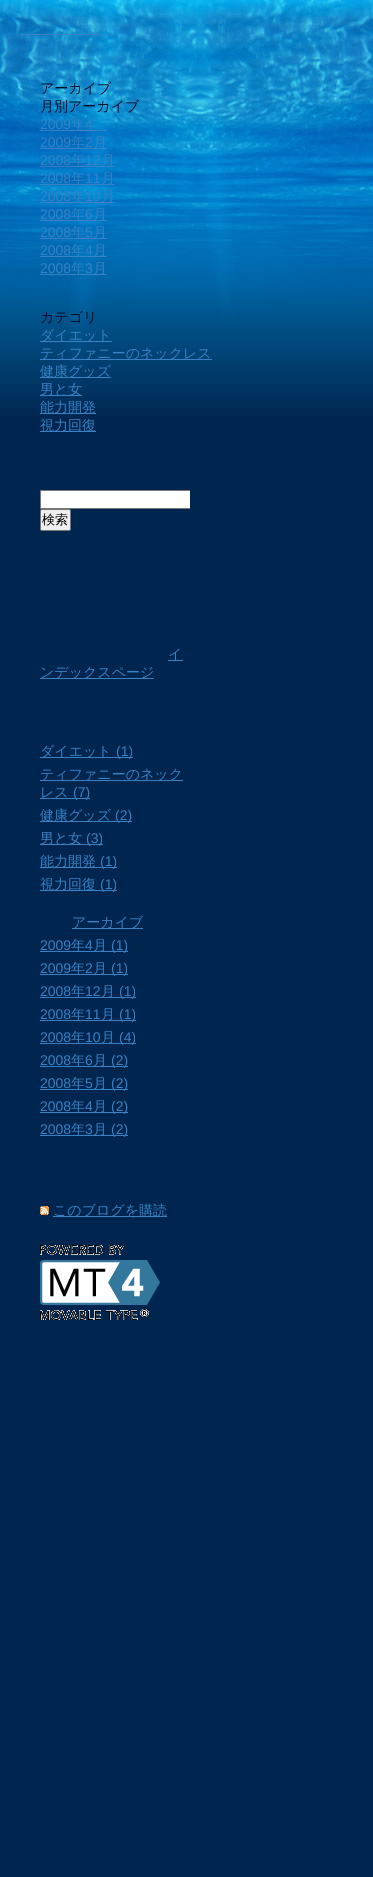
import math
import cairo

surface = cairo.ImageSurface(cairo.FORMAT_RGB24, 373, 1877)
cr = cairo.Context(surface)
options = cairo.FontOptions()
options.set_hint_metrics(cairo.HINT_METRICS_OFF)
options.set_hint_style(cairo.HINT_STYLE_NONE)
cr.set_font_options(options)
cr.set_miter_limit(4)


def rgb(code):
    cr.set_source_rgb(*(v / 255 for v in bytes.fromhex(code[-6:])))


def rrect(x, y, w, h, r):
    cr.new_sub_path()
    for i, (u, v) in enumerate([(x + w - r, y + h - r), (x + r, y + h - r), (x + r, y + r), (x + w - r, y + r)]):
        cr.arc(u, v, r, i * math.pi / 2, (i + 1) * math.pi / 2)
    cr.close_path()


def image(path, x, y, w, h):
    cr.save()
    cr.set_source_surface(cairo.ImageSurface.create_from_png(path), x, y)
    cr.rectangle(x, y, w, h)
    cr.fill()
    cr.restore()


rgb("#00254f")
cr.paint()
image("img/1.png", 0, 0, 373, 417)
for x, y, w, h, color in [
    (20, 34, 82, 1, "#3781c4"),
    (40, 130, 67, 1, "#3781c4"),
    (40, 148, 67, 1, "#3781c4"),
    (40, 166, 75, 1, "#3781c4"),
    (40, 184, 75, 1, "#3781c4"),
    (40, 202, 75, 1, "#3781c4"),
    (40, 220, 67, 1, "#3781c4"),
    (40, 238, 67, 1, "#3781c4"),
    (40, 256, 67, 1, "#3781c4"),
    (40, 274, 67, 1, "#3781c4"),
    (40, 341, 72, 1, "#3781c4"),
    (40, 359, 172, 1, "#3781c4"),
    (40, 377, 71, 1, "#3781c4"),
    (40, 395, 42, 1, "#3781c4"),
    (40, 413, 56, 1, "#3781c4"),
    (40, 431, 56, 1, "#3781c4"),
]:
    rgb(color)
    cr.rectangle(x, y, w, h)
    cr.fill()
rgb("#ffffff")
cr.new_path()
cr.move_to(42, 490)
cr.line_to(190, 490)
cr.line_to(190, 509)
cr.line_to(42, 509)
cr.curve_to(41, 509, 40, 508, 40, 507)
cr.line_to(40, 492)
cr.curve_to(40, 491, 41, 490, 42, 490)
cr.close_path()
cr.fill()
cr.save()
cr.rectangle(40, 467, 150, 84)
cr.clip()
rrect(40.5, 490.5, 180, 18, 1.5)
rgb("#767676")
cr.set_line_width(1)
cr.stroke()
cr.restore()
rgb("#efefef")
rrect(40.5, 509.5, 30, 21, 1.5)
cr.fill_preserve()
rgb("#767676")
cr.set_line_width(1)
cr.stroke()
for x, y, w, h, color in [
    (168, 660, 15, 1, "#3781c4"),
    (40, 678, 114, 1, "#3781c4"),
    (40, 757, 93, 1, "#3781c4"),
    (40, 780, 143, 1, "#3781c4"),
    (40, 798, 50, 1, "#3781c4"),
    (40, 821, 92, 1, "#3781c4"),
    (40, 844, 63, 1, "#3781c4"),
    (40, 867, 77, 1, "#3781c4"),
    (40, 890, 77, 1, "#3781c4"),
    (72, 928, 71, 1, "#3781c4"),
    (40, 951, 88, 1, "#3781c4"),
    (40, 974, 88, 1, "#3781c4"),
    (40, 997, 96, 1, "#3781c4"),
    (40, 1020, 96, 1, "#3781c4"),
    (40, 1043, 96, 1, "#3781c4"),
    (40, 1066, 88, 1, "#3781c4"),
    (40, 1089, 88, 1, "#3781c4"),
    (40, 1112, 88, 1, "#3781c4"),
    (40, 1135, 88, 1, "#3781c4"),
]:
    rgb(color)
    cr.rectangle(x, y, w, h)
    cr.fill()
image("img/2.png", 40, 1206, 9, 9)
cr.rectangle(53, 1216, 114, 1)
cr.fill()
image("img/3.png", 40, 1245, 120, 75)
cr.select_font_face("WenQuanYi Zen Hei Medium")
cr.set_font_size(14)
rgb("#090d28")
cr.move_to(40, 93)
cr.show_text("アーカイブ")
cr.move_to(40, 111)
cr.show_text("月別アーカイブ")
cr.select_font_face("Liberation Sans")
rgb("#3781c4")
cr.move_to(40, 129)
cr.show_text("2009")
cr.select_font_face("WenQuanYi Zen Hei Medium")
cr.move_to(71, 129)
cr.show_text("年")
cr.select_font_face("Liberation Sans")
cr.move_to(85, 129)
cr.show_text("4")
cr.move_to(40, 147)
cr.show_text("2009")
cr.select_font_face("WenQuanYi Zen Hei Medium")
cr.move_to(71, 147)
cr.show_text("年")
cr.select_font_face("Liberation Sans")
cr.move_to(85, 147)
cr.show_text("2")
cr.select_font_face("WenQuanYi Zen Hei Medium")
cr.move_to(93, 147)
cr.show_text("月")
cr.select_font_face("Liberation Sans")
cr.move_to(40, 165)
cr.show_text("2008")
cr.select_font_face("WenQuanYi Zen Hei Medium")
cr.move_to(71, 165)
cr.show_text("年")
cr.select_font_face("Liberation Sans")
cr.move_to(85, 165)
cr.show_text("12")
cr.select_font_face("WenQuanYi Zen Hei Medium")
cr.move_to(101, 165)
cr.show_text("月")
cr.select_font_face("Liberation Sans")
cr.move_to(40, 183)
cr.show_text("2008")
cr.select_font_face("WenQuanYi Zen Hei Medium")
cr.move_to(71, 183)
cr.show_text("年")
cr.select_font_face("Liberation Sans")
cr.move_to(85, 183)
cr.show_text("11")
cr.select_font_face("WenQuanYi Zen Hei Medium")
cr.move_to(101, 183)
cr.show_text("月")
cr.select_font_face("Liberation Sans")
cr.move_to(40, 201)
cr.show_text("2008")
cr.select_font_face("WenQuanYi Zen Hei Medium")
cr.move_to(71, 201)
cr.show_text("年")
cr.select_font_face("Liberation Sans")
cr.move_to(85, 201)
cr.show_text("10")
cr.select_font_face("WenQuanYi Zen Hei Medium")
cr.move_to(101, 201)
cr.show_text("月")
cr.select_font_face("Liberation Sans")
cr.move_to(40, 219)
cr.show_text("2008")
cr.select_font_face("WenQuanYi Zen Hei Medium")
cr.move_to(71, 219)
cr.show_text("年")
cr.select_font_face("Liberation Sans")
cr.move_to(85, 219)
cr.show_text("6")
cr.select_font_face("WenQuanYi Zen Hei Medium")
cr.move_to(93, 219)
cr.show_text("月")
cr.select_font_face("Liberation Sans")
cr.move_to(40, 237)
cr.show_text("2008")
cr.select_font_face("WenQuanYi Zen Hei Medium")
cr.move_to(71, 237)
cr.show_text("年")
cr.select_font_face("Liberation Sans")
cr.move_to(85, 237)
cr.show_text("5")
cr.select_font_face("WenQuanYi Zen Hei Medium")
cr.move_to(93, 237)
cr.show_text("月")
cr.select_font_face("Liberation Sans")
cr.move_to(40, 255)
cr.show_text("2008")
cr.select_font_face("WenQuanYi Zen Hei Medium")
cr.move_to(71, 255)
cr.show_text("年")
cr.select_font_face("Liberation Sans")
cr.move_to(85, 255)
cr.show_text("4")
cr.select_font_face("WenQuanYi Zen Hei Medium")
cr.move_to(93, 255)
cr.show_text("月")
cr.select_font_face("Liberation Sans")
cr.move_to(40, 273)
cr.show_text("2008")
cr.select_font_face("WenQuanYi Zen Hei Medium")
cr.move_to(71, 273)
cr.show_text("年")
cr.select_font_face("Liberation Sans")
cr.move_to(85, 273)
cr.show_text("3")
cr.select_font_face("WenQuanYi Zen Hei Medium")
cr.move_to(93, 273)
cr.show_text("月")
rgb("#090d28")
cr.move_to(40, 322)
cr.show_text("カテゴリ")
rgb("#3781c4")
for x, y, s in [
    (40, 340, "ダイエット"),
    (40, 358, "ティファニーのネックレス"),
    (40, 376, "健康グッズ"),
    (40, 394, "男と女"),
    (40, 412, "能力開発"),
    (40, 430, "視力回復"),
]:
    cr.move_to(x, y)
    cr.show_text(s)
cr.set_font_size(13)
rgb("#000000")
cr.move_to(42, 524)
cr.show_text("検索")
cr.set_font_size(14)
rgb("#3781c4")
for x, y, s in [
    (168, 659, "イ"),
    (40, 677, "ンデックスページ"),
    (40, 756, "ダイエット"),
]:
    cr.move_to(x, y)
    cr.show_text(s)
cr.select_font_face("Liberation Sans")
cr.move_to(116, 756)
cr.show_text("(1)")
cr.select_font_face("WenQuanYi Zen Hei Medium")
cr.move_to(40, 779)
cr.show_text("ティファニーのネック")
cr.move_to(40, 797)
cr.show_text("レス")
cr.select_font_face("Liberation Sans")
cr.move_to(73, 797)
cr.show_text("(7)")
cr.select_font_face("WenQuanYi Zen Hei Medium")
cr.move_to(40, 820)
cr.show_text("健康グッズ")
cr.select_font_face("Liberation Sans")
cr.move_to(115, 820)
cr.show_text("(2)")
cr.select_font_face("WenQuanYi Zen Hei Medium")
cr.move_to(40, 843)
cr.show_text("男と女")
cr.select_font_face("Liberation Sans")
cr.move_to(86, 843)
cr.show_text("(3)")
cr.select_font_face("WenQuanYi Zen Hei Medium")
cr.move_to(40, 866)
cr.show_text("能力開発")
cr.select_font_face("Liberation Sans")
cr.move_to(100, 866)
cr.show_text("(1)")
cr.select_font_face("WenQuanYi Zen Hei Medium")
cr.move_to(40, 889)
cr.show_text("視力回復")
cr.select_font_face("Liberation Sans")
cr.move_to(100, 889)
cr.show_text("(1)")
cr.select_font_face("WenQuanYi Zen Hei Medium")
cr.move_to(72, 927)
cr.show_text("アーカイブ")
cr.select_font_face("Liberation Sans")
cr.move_to(40, 950)
cr.show_text("2009")
cr.select_font_face("WenQuanYi Zen Hei Medium")
cr.move_to(71, 950)
cr.show_text("年")
cr.select_font_face("Liberation Sans")
cr.move_to(85, 950)
cr.show_text("4")
cr.select_font_face("WenQuanYi Zen Hei Medium")
cr.move_to(93, 950)
cr.show_text("月")
cr.select_font_face("Liberation Sans")
cr.move_to(111, 950)
cr.show_text("(1)")
cr.move_to(40, 973)
cr.show_text("2009")
cr.select_font_face("WenQuanYi Zen Hei Medium")
cr.move_to(71, 973)
cr.show_text("年")
cr.select_font_face("Liberation Sans")
cr.move_to(85, 973)
cr.show_text("2")
cr.select_font_face("WenQuanYi Zen Hei Medium")
cr.move_to(93, 973)
cr.show_text("月")
cr.select_font_face("Liberation Sans")
cr.move_to(111, 973)
cr.show_text("(1)")
cr.move_to(40, 996)
cr.show_text("2008")
cr.select_font_face("WenQuanYi Zen Hei Medium")
cr.move_to(71, 996)
cr.show_text("年")
cr.select_font_face("Liberation Sans")
cr.move_to(85, 996)
cr.show_text("12")
cr.select_font_face("WenQuanYi Zen Hei Medium")
cr.move_to(101, 996)
cr.show_text("月")
cr.select_font_face("Liberation Sans")
cr.move_to(119, 996)
cr.show_text("(1)")
cr.move_to(40, 1019)
cr.show_text("2008")
cr.select_font_face("WenQuanYi Zen Hei Medium")
cr.move_to(71, 1019)
cr.show_text("年")
cr.select_font_face("Liberation Sans")
cr.move_to(85, 1019)
cr.show_text("11")
cr.select_font_face("WenQuanYi Zen Hei Medium")
cr.move_to(101, 1019)
cr.show_text("月")
cr.select_font_face("Liberation Sans")
cr.move_to(119, 1019)
cr.show_text("(1)")
cr.move_to(40, 1042)
cr.show_text("2008")
cr.select_font_face("WenQuanYi Zen Hei Medium")
cr.move_to(71, 1042)
cr.show_text("年")
cr.select_font_face("Liberation Sans")
cr.move_to(85, 1042)
cr.show_text("10")
cr.select_font_face("WenQuanYi Zen Hei Medium")
cr.move_to(101, 1042)
cr.show_text("月")
cr.select_font_face("Liberation Sans")
cr.move_to(119, 1042)
cr.show_text("(4)")
cr.move_to(40, 1065)
cr.show_text("2008")
cr.select_font_face("WenQuanYi Zen Hei Medium")
cr.move_to(71, 1065)
cr.show_text("年")
cr.select_font_face("Liberation Sans")
cr.move_to(85, 1065)
cr.show_text("6")
cr.select_font_face("WenQuanYi Zen Hei Medium")
cr.move_to(93, 1065)
cr.show_text("月")
cr.select_font_face("Liberation Sans")
cr.move_to(111, 1065)
cr.show_text("(2)")
cr.move_to(40, 1088)
cr.show_text("2008")
cr.select_font_face("WenQuanYi Zen Hei Medium")
cr.move_to(71, 1088)
cr.show_text("年")
cr.select_font_face("Liberation Sans")
cr.move_to(85, 1088)
cr.show_text("5")
cr.select_font_face("WenQuanYi Zen Hei Medium")
cr.move_to(93, 1088)
cr.show_text("月")
cr.select_font_face("Liberation Sans")
cr.move_to(111, 1088)
cr.show_text("(2)")
cr.move_to(40, 1111)
cr.show_text("2008")
cr.select_font_face("WenQuanYi Zen Hei Medium")
cr.move_to(71, 1111)
cr.show_text("年")
cr.select_font_face("Liberation Sans")
cr.move_to(85, 1111)
cr.show_text("4")
cr.select_font_face("WenQuanYi Zen Hei Medium")
cr.move_to(93, 1111)
cr.show_text("月")
cr.select_font_face("Liberation Sans")
cr.move_to(111, 1111)
cr.show_text("(2)")
cr.move_to(40, 1134)
cr.show_text("2008")
cr.select_font_face("WenQuanYi Zen Hei Medium")
cr.move_to(71, 1134)
cr.show_text("年")
cr.select_font_face("Liberation Sans")
cr.move_to(85, 1134)
cr.show_text("3")
cr.select_font_face("WenQuanYi Zen Hei Medium")
cr.move_to(93, 1134)
cr.show_text("月")
cr.select_font_face("Liberation Sans")
cr.move_to(111, 1134)
cr.show_text("(2)")
cr.select_font_face("WenQuanYi Zen Hei Medium")
cr.move_to(53, 1215)
cr.show_text("このブログを購読")
surface.write_to_png("page.png")
